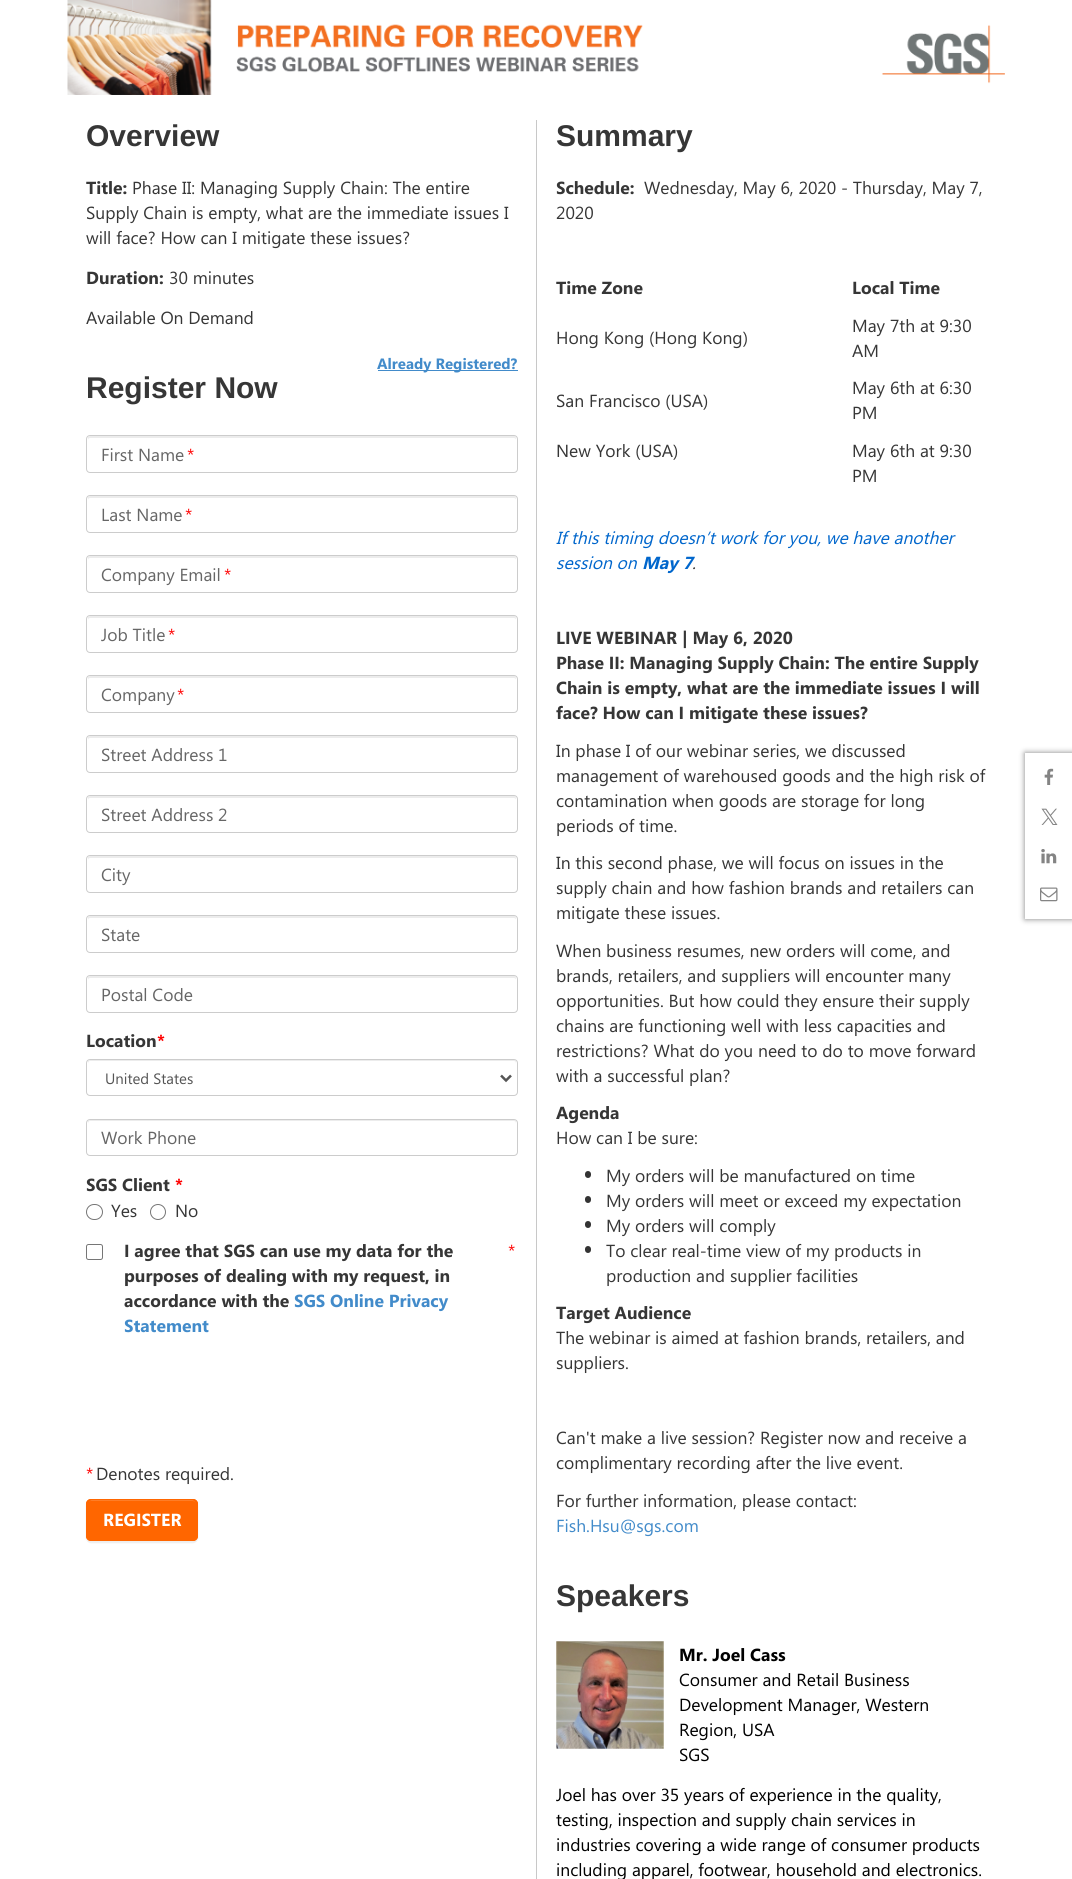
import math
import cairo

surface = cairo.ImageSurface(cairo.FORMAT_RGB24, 1072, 1879)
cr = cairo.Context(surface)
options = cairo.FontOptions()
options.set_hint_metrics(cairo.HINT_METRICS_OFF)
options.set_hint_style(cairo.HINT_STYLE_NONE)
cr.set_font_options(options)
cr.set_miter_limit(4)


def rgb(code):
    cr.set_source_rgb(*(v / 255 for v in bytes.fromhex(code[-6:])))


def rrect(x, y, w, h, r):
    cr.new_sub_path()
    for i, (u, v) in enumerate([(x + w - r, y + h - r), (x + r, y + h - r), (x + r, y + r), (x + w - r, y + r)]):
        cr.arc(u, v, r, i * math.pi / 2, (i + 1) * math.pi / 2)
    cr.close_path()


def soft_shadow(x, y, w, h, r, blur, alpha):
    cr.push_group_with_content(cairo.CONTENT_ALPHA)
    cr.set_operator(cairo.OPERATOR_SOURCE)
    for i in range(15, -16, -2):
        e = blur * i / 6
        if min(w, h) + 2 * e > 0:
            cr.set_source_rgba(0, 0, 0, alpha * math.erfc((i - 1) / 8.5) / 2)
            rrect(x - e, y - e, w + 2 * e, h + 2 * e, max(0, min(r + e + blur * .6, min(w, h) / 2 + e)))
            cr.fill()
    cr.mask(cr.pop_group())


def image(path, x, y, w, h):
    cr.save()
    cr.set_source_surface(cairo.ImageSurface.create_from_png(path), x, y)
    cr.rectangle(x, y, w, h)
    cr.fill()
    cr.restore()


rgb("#ffffff")
cr.paint()
image("img/1.png", 67, 0, 938, 95)
rgb("#428bca")
cr.rectangle(378, 370, 140, 1)
cr.fill()
rgb("#ececec")
cr.new_path()
cr.move_to(90, 438)
cr.line_to(514, 438)
cr.curve_to(515, 438, 516, 439, 516, 440)
cr.curve_to(516, 438, 516, 436, 514, 436)
cr.line_to(90, 436)
cr.line_to(88, 437)
cr.line_to(88, 440)
cr.curve_to(88, 439, 89, 438, 90, 438)
cr.close_path()
cr.fill()
rrect(86.5, 435.5, 431, 37, 3.5)
rgb("#cccccc")
cr.set_line_width(1)
cr.stroke()
rgb("#ececec")
cr.new_path()
cr.move_to(90, 498)
cr.line_to(514, 498)
cr.curve_to(515, 498, 516, 499, 516, 500)
cr.curve_to(516, 498, 516, 496, 514, 496)
cr.line_to(90, 496)
cr.line_to(88, 497)
cr.line_to(88, 500)
cr.curve_to(88, 499, 89, 498, 90, 498)
cr.close_path()
cr.fill()
rrect(86.5, 495.5, 431, 37, 3.5)
rgb("#cccccc")
cr.stroke()
rgb("#ececec")
cr.new_path()
cr.move_to(90, 558)
cr.line_to(514, 558)
cr.curve_to(515, 558, 516, 559, 516, 560)
cr.curve_to(516, 558, 516, 556, 514, 556)
cr.line_to(90, 556)
cr.line_to(88, 557)
cr.line_to(88, 560)
cr.curve_to(88, 559, 89, 558, 90, 558)
cr.close_path()
cr.fill()
rrect(86.5, 555.5, 431, 37, 3.5)
rgb("#cccccc")
cr.stroke()
rgb("#ececec")
cr.new_path()
cr.move_to(90, 618)
cr.line_to(514, 618)
cr.curve_to(515, 618, 516, 619, 516, 620)
cr.curve_to(516, 618, 516, 616, 514, 616)
cr.line_to(90, 616)
cr.line_to(88, 617)
cr.line_to(88, 620)
cr.curve_to(88, 619, 89, 618, 90, 618)
cr.close_path()
cr.fill()
rrect(86.5, 615.5, 431, 37, 3.5)
rgb("#cccccc")
cr.stroke()
rgb("#ececec")
cr.new_path()
cr.move_to(90, 678)
cr.line_to(514, 678)
cr.curve_to(515, 678, 516, 679, 516, 680)
cr.curve_to(516, 678, 516, 676, 514, 676)
cr.line_to(90, 676)
cr.line_to(88, 677)
cr.line_to(88, 680)
cr.curve_to(88, 679, 89, 678, 90, 678)
cr.close_path()
cr.fill()
rrect(86.5, 675.5, 431, 37, 3.5)
rgb("#cccccc")
cr.stroke()
rgb("#ececec")
cr.new_path()
cr.move_to(90, 738)
cr.line_to(514, 738)
cr.curve_to(515, 738, 516, 739, 516, 740)
cr.curve_to(516, 738, 516, 736, 514, 736)
cr.line_to(90, 736)
cr.line_to(88, 737)
cr.line_to(88, 740)
cr.curve_to(88, 739, 89, 738, 90, 738)
cr.close_path()
cr.fill()
rrect(86.5, 735.5, 431, 37, 3.5)
rgb("#cccccc")
cr.stroke()
rgb("#ececec")
cr.new_path()
cr.move_to(90, 798)
cr.line_to(514, 798)
cr.curve_to(515, 798, 516, 799, 516, 800)
cr.curve_to(516, 798, 516, 796, 514, 796)
cr.line_to(90, 796)
cr.line_to(88, 797)
cr.line_to(88, 800)
cr.curve_to(88, 799, 89, 798, 90, 798)
cr.close_path()
cr.fill()
rrect(86.5, 795.5, 431, 37, 3.5)
rgb("#cccccc")
cr.stroke()
rgb("#ececec")
cr.new_path()
cr.move_to(90, 858)
cr.line_to(514, 858)
cr.curve_to(515, 858, 516, 859, 516, 860)
cr.curve_to(516, 858, 516, 856, 514, 856)
cr.line_to(90, 856)
cr.line_to(88, 857)
cr.line_to(88, 860)
cr.curve_to(88, 859, 89, 858, 90, 858)
cr.close_path()
cr.fill()
rrect(86.5, 855.5, 431, 37, 3.5)
rgb("#cccccc")
cr.stroke()
rgb("#ececec")
cr.new_path()
cr.move_to(90, 918)
cr.line_to(514, 918)
cr.curve_to(515, 918, 516, 919, 516, 920)
cr.curve_to(516, 918, 516, 916, 514, 916)
cr.line_to(90, 916)
cr.line_to(88, 917)
cr.line_to(88, 920)
cr.curve_to(88, 919, 89, 918, 90, 918)
cr.close_path()
cr.fill()
rrect(86.5, 915.5, 431, 37, 3.5)
rgb("#cccccc")
cr.stroke()
rgb("#ececec")
cr.new_path()
cr.move_to(90, 978)
cr.line_to(514, 978)
cr.curve_to(515, 978, 516, 979, 516, 980)
cr.curve_to(516, 978, 516, 976, 514, 976)
cr.line_to(90, 976)
cr.line_to(88, 977)
cr.line_to(88, 980)
cr.curve_to(88, 979, 89, 978, 90, 978)
cr.close_path()
cr.fill()
rrect(86.5, 975.5, 431, 37, 3.5)
rgb("#cccccc")
cr.stroke()
rgb("#ececec")
cr.new_path()
cr.move_to(90, 1061)
cr.line_to(514, 1061)
cr.curve_to(515, 1061, 516, 1062, 516, 1064)
cr.curve_to(516, 1062, 516, 1060, 514, 1060)
cr.line_to(90, 1060)
cr.line_to(88, 1061)
cr.line_to(88, 1064)
cr.curve_to(88, 1062, 89, 1061, 90, 1061)
cr.close_path()
cr.fill()
rrect(86.5, 1059.5, 431, 36, 3.5)
rgb("#cccccc")
cr.stroke()
cr.new_path()
cr.move_to(501, 1075.5)
cr.line_to(506, 1080.5)
cr.line_to(511, 1075.5)
rgb("#555555")
cr.set_line_width(2.5)
cr.stroke()
rgb("#ececec")
cr.new_path()
cr.move_to(90, 1121)
cr.line_to(514, 1121)
cr.curve_to(515, 1121, 516, 1122, 516, 1124)
cr.curve_to(516, 1122, 516, 1120, 514, 1120)
cr.line_to(90, 1120)
cr.line_to(88, 1121)
cr.line_to(88, 1124)
cr.curve_to(88, 1122, 89, 1121, 90, 1121)
cr.close_path()
cr.fill()
rrect(86.5, 1119.5, 431, 36, 3.5)
rgb("#cccccc")
cr.set_line_width(1)
cr.stroke()
rrect(86.5, 1204.5, 16, 15, 7.5)
rgb("#767676")
cr.stroke()
cr.arc(158, 1212, 7.5, 0, 2 * math.pi)
cr.stroke()
rrect(86.5, 1244.5, 16, 15, 2)
cr.stroke()
rgb("#000000")
soft_shadow(86, 1500, 112, 43, 5, 0.5, 0.07)
rgb("#ff6600")
rrect(86, 1499, 112, 42, 5)
cr.fill()
rgb("#ff7d26")
cr.new_path()
cr.move_to(91, 1501)
cr.line_to(192, 1501)
cr.curve_to(195, 1501, 196, 1503, 196, 1505)
cr.curve_to(196, 1496, 179, 1500, 175, 1500)
cr.line_to(109, 1500)
cr.curve_to(105, 1500, 88, 1496, 88, 1505)
cr.curve_to(88, 1503, 89, 1501, 91, 1501)
cr.close_path()
cr.fill()
rrect(86.5, 1499.5, 111, 41, 4.5)
rgb("#ff6600")
cr.stroke()
rgb("#c8c8c8")
cr.rectangle(536, 120, 1, 1759)
cr.fill()
rgb("#333333")
rrect(585, 1171, 6, 7, 3)
cr.fill()
rrect(585, 1196, 6, 7, 3)
cr.fill()
rrect(585, 1221, 6, 7, 3)
cr.fill()
rrect(585, 1246, 6, 7, 3)
cr.fill()
image("img/2.png", 556, 1641, 108, 108)
rgb("#808080")
soft_shadow(1025, 753, 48, 166, 0, 3, 1)
rgb("#ffffff")
cr.rectangle(1025, 753, 47, 166)
cr.fill()
image("img/3.png", 1044, 768, 10, 17)
image("img/4.png", 1041, 808, 17, 17)
image("img/5.png", 1041, 849, 16, 15)
image("img/6.png", 1040, 887, 18, 15)
cr.select_font_face("Liberation Sans", cairo.FONT_SLANT_NORMAL, cairo.FONT_WEIGHT_BOLD)
cr.set_font_size(30)
rgb("#363636")
cr.move_to(86, 146)
cr.show_text("Overview")
cr.select_font_face("Segoe UI", cairo.FONT_SLANT_NORMAL, cairo.FONT_WEIGHT_BOLD)
cr.set_font_size(17.5)
cr.move_to(86, 194)
cr.show_text("Title:")
cr.select_font_face("Segoe UI")
for x, y, s in [
    (132, 194, "Phase II: Managing Supply Chain: The entire"),
    (86, 219, "Supply Chain is empty, what are the immediate issues I"),
    (86, 244, "will face? How can I mitigate these issues?"),
]:
    cr.move_to(x, y)
    cr.show_text(s)
cr.select_font_face("Segoe UI", cairo.FONT_SLANT_NORMAL, cairo.FONT_WEIGHT_BOLD)
cr.move_to(86, 284)
cr.show_text("Duration:")
cr.select_font_face("Segoe UI")
cr.move_to(169, 284)
cr.show_text("30 minutes")
cr.move_to(86, 324)
cr.show_text("Available On Demand")
cr.select_font_face("Segoe UI", cairo.FONT_SLANT_NORMAL, cairo.FONT_WEIGHT_BOLD)
cr.set_font_size(15)
rgb("#428bca")
cr.move_to(377, 369)
cr.show_text("Already Registered?")
cr.select_font_face("Liberation Sans", cairo.FONT_SLANT_NORMAL, cairo.FONT_WEIGHT_BOLD)
cr.set_font_size(30)
rgb("#363636")
cr.move_to(86, 398)
cr.show_text("Register Now")
cr.select_font_face("Segoe UI")
cr.set_font_size(17.5)
rgb("#666666")
cr.move_to(101, 461)
cr.show_text("First Name")
rgb("#ff0000")
cr.move_to(187, 461)
cr.show_text("*")
rgb("#666666")
cr.move_to(101, 521)
cr.show_text("Last Name")
rgb("#ff0000")
cr.move_to(185, 521)
cr.show_text("*")
rgb("#666666")
cr.move_to(101, 581)
cr.show_text("Company Email")
rgb("#ff0000")
cr.move_to(224, 581)
cr.show_text("*")
rgb("#666666")
cr.move_to(101, 641)
cr.show_text("Job Title")
rgb("#ff0000")
cr.move_to(168, 641)
cr.show_text("*")
rgb("#666666")
cr.move_to(101, 701)
cr.show_text("Company")
rgb("#ff0000")
cr.move_to(177, 701)
cr.show_text("*")
rgb("#666666")
for x, y, s in [
    (101, 761, "Street Address 1"),
    (101, 821, "Street Address 2"),
    (101, 881, "City"),
    (101, 941, "State"),
    (101, 1001, "Postal Code"),
]:
    cr.move_to(x, y)
    cr.show_text(s)
cr.select_font_face("Segoe UI", cairo.FONT_SLANT_NORMAL, cairo.FONT_WEIGHT_BOLD)
rgb("#363636")
cr.move_to(86, 1047)
cr.show_text("Location")
rgb("#ff0000")
cr.move_to(157, 1047)
cr.show_text("*")
cr.select_font_face("Segoe UI")
cr.set_font_size(15)
rgb("#555555")
cr.move_to(105, 1084)
cr.show_text("United States")
cr.set_font_size(17.5)
rgb("#666666")
cr.move_to(101, 1144)
cr.show_text("Work Phone")
cr.select_font_face("Segoe UI", cairo.FONT_SLANT_NORMAL, cairo.FONT_WEIGHT_BOLD)
rgb("#363636")
cr.move_to(86, 1191)
cr.show_text("SGS Client")
rgb("#ff0000")
cr.move_to(175, 1191)
cr.show_text("*")
cr.select_font_face("Segoe UI")
rgb("#363636")
cr.move_to(111, 1217)
cr.show_text("Yes")
cr.move_to(175, 1217)
cr.show_text("No")
cr.select_font_face("Segoe UI", cairo.FONT_SLANT_NORMAL, cairo.FONT_WEIGHT_BOLD)
for x, y, s in [
    (124, 1257, "I agree that SGS can use my data for the"),
    (124, 1282, "purposes of dealing with my request, in"),
    (124, 1307, "accordance with the"),
]:
    cr.move_to(x, y)
    cr.show_text(s)
rgb("#428bca")
cr.move_to(294, 1307)
cr.show_text("SGS Online Privacy")
cr.move_to(124, 1332)
cr.show_text("Statement")
cr.select_font_face("Segoe UI")
rgb("#ff0000")
cr.move_to(508, 1257)
cr.show_text("*")
cr.move_to(86, 1480)
cr.show_text("*")
rgb("#363636")
cr.move_to(96, 1480)
cr.show_text("Denotes required.")
cr.select_font_face("Segoe UI", cairo.FONT_SLANT_NORMAL, cairo.FONT_WEIGHT_BOLD)
rgb("#ffffff")
cr.move_to(103, 1526)
cr.show_text("REGISTER")
cr.select_font_face("Liberation Sans", cairo.FONT_SLANT_NORMAL, cairo.FONT_WEIGHT_BOLD)
cr.set_font_size(30)
rgb("#363636")
cr.move_to(556, 146)
cr.show_text("Summary")
cr.select_font_face("Segoe UI", cairo.FONT_SLANT_NORMAL, cairo.FONT_WEIGHT_BOLD)
cr.set_font_size(17.5)
cr.move_to(556, 194)
cr.show_text("Schedule:")
cr.select_font_face("Segoe UI")
cr.move_to(644, 194)
cr.show_text("Wednesday, May 6, 2020 - Thursday, May 7,")
cr.move_to(556, 219)
cr.show_text("2020")
cr.select_font_face("Segoe UI", cairo.FONT_SLANT_NORMAL, cairo.FONT_WEIGHT_BOLD)
cr.move_to(556, 294)
cr.show_text("Time Zone")
cr.move_to(852, 294)
cr.show_text("Local Time")
cr.select_font_face("Segoe UI")
for x, y, s in [
    (556, 344, "Hong Kong (Hong Kong)"),
    (852, 332, "May 7th at 9:30"),
    (852, 357, "AM"),
    (556, 407, "San Francisco (USA)"),
    (852, 394, "May 6th at 6:30"),
    (852, 419, "PM"),
    (556, 457, "New York (USA)"),
    (852, 457, "May 6th at 9:30"),
    (852, 482, "PM"),
]:
    cr.move_to(x, y)
    cr.show_text(s)
cr.select_font_face("Segoe UI", cairo.FONT_SLANT_ITALIC)
rgb("#0066cc")
cr.move_to(556, 544)
cr.show_text("If this timing doesn’t work for you, we have another")
cr.move_to(556, 569)
cr.show_text("session on")
cr.select_font_face("Segoe UI", cairo.FONT_SLANT_ITALIC, cairo.FONT_WEIGHT_BOLD)
cr.move_to(642, 569)
cr.show_text("May 7")
cr.select_font_face("Segoe UI", cairo.FONT_SLANT_ITALIC)
rgb("#363636")
cr.move_to(692, 569)
cr.show_text(".")
cr.select_font_face("Segoe UI", cairo.FONT_SLANT_NORMAL, cairo.FONT_WEIGHT_BOLD)
for x, y, s in [
    (556, 644, "LIVE WEBINAR | May 6, 2020"),
    (556, 669, "Phase II: Managing Supply Chain: The entire Supply"),
    (556, 694, "Chain is empty, what are the immediate issues I will"),
    (556, 719, "face? How can I mitigate these issues?"),
]:
    cr.move_to(x, y)
    cr.show_text(s)
cr.select_font_face("Segoe UI")
for x, y, s in [
    (556, 757, "In phase I of our webinar series, we discussed"),
    (556, 782, "management of warehoused goods and the high risk of"),
    (556, 807, "contamination when goods are storage for long"),
    (556, 832, "periods of time."),
    (556, 869, "In this second phase, we will focus on issues in the"),
    (556, 894, "supply chain and how fashion brands and retailers can"),
    (556, 919, "mitigate these issues."),
    (556, 957, "When business resumes, new orders will come, and"),
    (556, 982, "brands, retailers, and suppliers will encounter many"),
    (556, 1007, "opportunities. But how could they ensure their supply"),
    (556, 1032, "chains are functioning well with less capacities and"),
    (556, 1057, "restrictions? What do you need to do to move forward"),
    (556, 1082, "with a successful plan?"),
]:
    cr.move_to(x, y)
    cr.show_text(s)
cr.select_font_face("Segoe UI", cairo.FONT_SLANT_NORMAL, cairo.FONT_WEIGHT_BOLD)
cr.move_to(556, 1119)
cr.show_text("Agenda")
cr.select_font_face("Segoe UI")
for x, y, s in [
    (556, 1144, "How can I be sure:"),
    (606, 1182, "My orders will be manufactured on time"),
    (606, 1207, "My orders will meet or exceed my expectation"),
    (606, 1232, "My orders will comply"),
    (606, 1257, "To clear real-time view of my products in"),
    (606, 1282, "production and supplier facilities"),
]:
    cr.move_to(x, y)
    cr.show_text(s)
cr.select_font_face("Segoe UI", cairo.FONT_SLANT_NORMAL, cairo.FONT_WEIGHT_BOLD)
cr.move_to(556, 1319)
cr.show_text("Target Audience")
cr.select_font_face("Segoe UI")
for x, y, s in [
    (556, 1344, "The webinar is aimed at fashion brands, retailers, and"),
    (556, 1369, "suppliers."),
    (556, 1444, "Can't make a live session? Register now and receive a"),
    (556, 1469, "complimentary recording after the live event."),
    (556, 1507, "For further information, please contact:"),
]:
    cr.move_to(x, y)
    cr.show_text(s)
rgb("#428bca")
cr.move_to(556, 1532)
cr.show_text("Fish.Hsu@sgs.com")
cr.select_font_face("Liberation Sans", cairo.FONT_SLANT_NORMAL, cairo.FONT_WEIGHT_BOLD)
cr.set_font_size(30)
rgb("#363636")
cr.move_to(556, 1606)
cr.show_text("Speakers")
cr.select_font_face("Segoe UI", cairo.FONT_SLANT_NORMAL, cairo.FONT_WEIGHT_BOLD)
cr.set_font_size(17.5)
rgb("#000000")
cr.move_to(679, 1661)
cr.show_text("Mr. Joel Cass")
cr.select_font_face("Segoe UI")
for x, y, s in [
    (679, 1686, "Consumer and Retail Business"),
    (679, 1711, "Development Manager, Western"),
    (679, 1736, "Region, USA"),
    (679, 1761, "SGS"),
    (556, 1801, "Joel has over 35 years of experience in the quality,"),
    (556, 1826, "testing, inspection and supply chain services in"),
    (556, 1851, "industries covering a wide range of consumer products"),
    (556, 1876, "including apparel, footwear, household and electronics."),
]:
    cr.move_to(x, y)
    cr.show_text(s)
surface.write_to_png("page.png")
